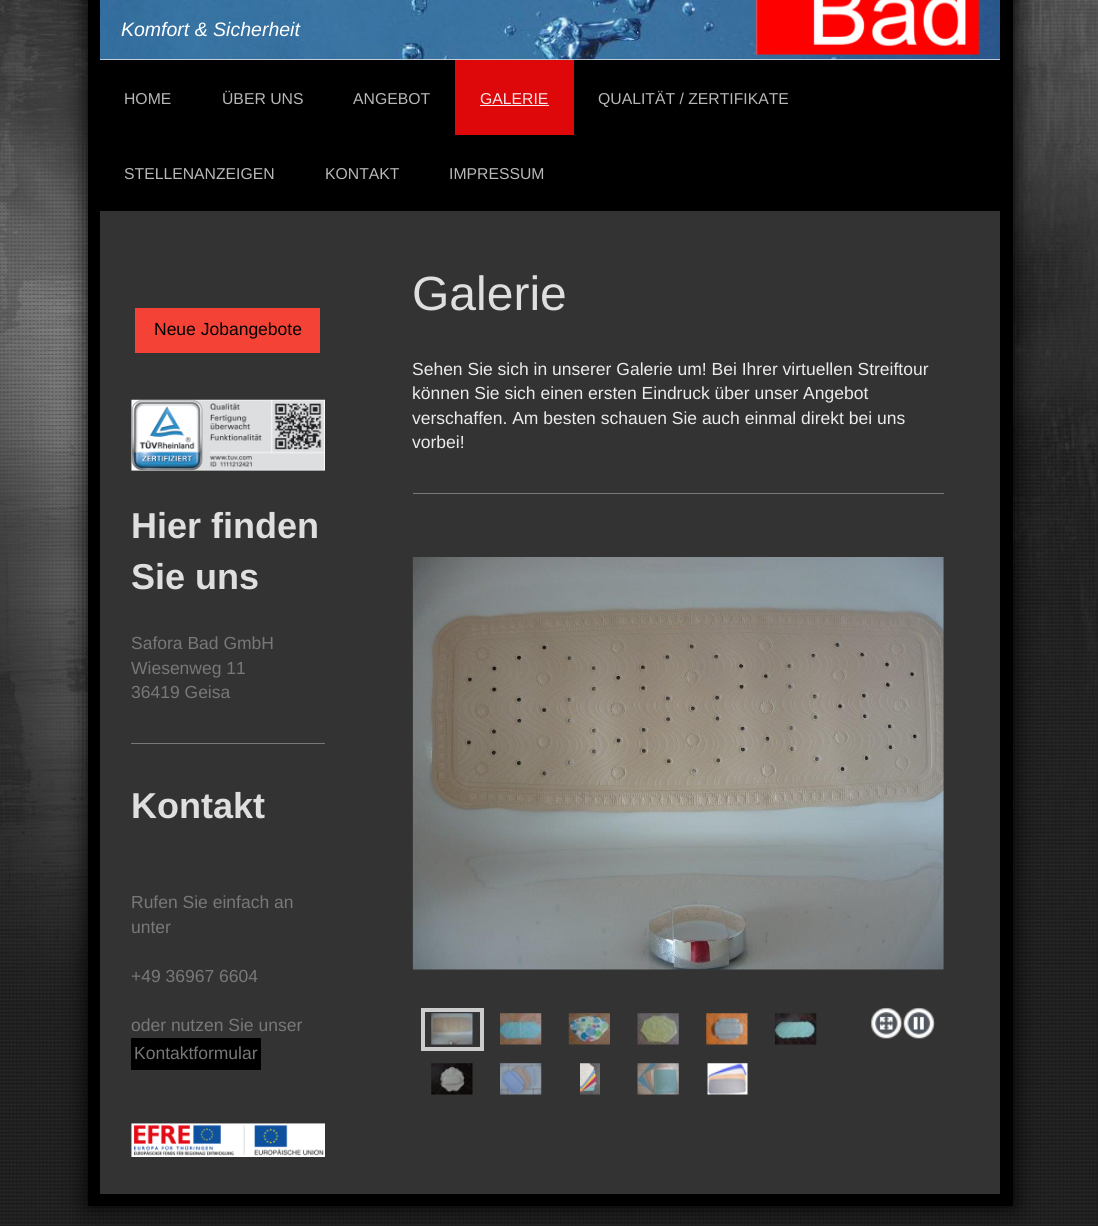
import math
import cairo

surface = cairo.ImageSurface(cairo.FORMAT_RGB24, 1098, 1226)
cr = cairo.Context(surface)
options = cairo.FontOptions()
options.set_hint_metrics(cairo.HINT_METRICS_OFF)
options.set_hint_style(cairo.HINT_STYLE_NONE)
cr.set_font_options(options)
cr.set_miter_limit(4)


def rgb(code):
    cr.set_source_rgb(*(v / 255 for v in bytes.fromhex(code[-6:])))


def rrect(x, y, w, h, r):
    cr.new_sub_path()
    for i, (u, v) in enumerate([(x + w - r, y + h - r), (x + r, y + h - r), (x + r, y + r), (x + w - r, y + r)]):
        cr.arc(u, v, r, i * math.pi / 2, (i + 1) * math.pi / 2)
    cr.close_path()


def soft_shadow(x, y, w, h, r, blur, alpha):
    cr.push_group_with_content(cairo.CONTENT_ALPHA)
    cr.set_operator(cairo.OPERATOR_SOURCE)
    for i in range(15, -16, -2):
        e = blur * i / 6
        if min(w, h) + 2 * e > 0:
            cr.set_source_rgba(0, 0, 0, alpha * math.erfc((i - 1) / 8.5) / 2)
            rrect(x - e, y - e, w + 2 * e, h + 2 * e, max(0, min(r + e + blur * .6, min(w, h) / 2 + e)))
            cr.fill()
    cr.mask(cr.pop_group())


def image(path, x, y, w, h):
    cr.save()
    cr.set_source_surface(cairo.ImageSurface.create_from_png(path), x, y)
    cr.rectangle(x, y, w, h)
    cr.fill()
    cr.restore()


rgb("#1d1d1d")
cr.paint()
image("img/1.png", 0, 0, 1098, 1225)
rgb("#000000")
soft_shadow(88, -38, 925, 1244, 0, 12.5, 1)
rgb("#000000")
cr.rectangle(88, 0, 925, 1206)
cr.fill()
rgb("#eeeeee")
cr.rectangle(100, 59, 900, 1)
cr.fill()
image("img/2.png", 100, 0, 900, 60)
image("img/3.png", 756, 0, 223, 55)
for x, y, w, h, color in [
    (455, 60, 119, 75, "#de070a"),
    (480, 105, 69, 1, "#fce6e7"),
    (100, 211, 900, 983, "#333333"),
    (135, 308, 185, 45, "#f44336"),
]:
    rgb(color)
    cr.rectangle(x, y, w, h)
    cr.fill()
image("img/4.png", 131, 399, 194, 72)
rgb("#787878")
cr.rectangle(131, 743, 194, 1)
cr.fill()
rgb("#000000")
cr.rectangle(131, 1038, 130, 32)
cr.fill()
image("img/5.png", 131, 1123, 194, 34)
rgb("#787878")
cr.rectangle(413, 493, 531, 1)
cr.fill()
image("img/6.png", 412, 557, 532, 413)
cr.rectangle(423, 1010, 59, 39)
rgb("#cccccc")
cr.set_line_width(4)
cr.stroke()
image("img/7.png", 431, 1013, 42, 32)
image("img/8.png", 500, 1013, 42, 32)
image("img/9.png", 568, 1013, 42, 32)
image("img/10.png", 637, 1013, 42, 32)
image("img/11.png", 706, 1013, 42, 32)
image("img/12.png", 775, 1013, 42, 32)
image("img/13.png", 871, 1007, 32, 32)
image("img/14.png", 903, 1007, 32, 32)
image("img/15.png", 431, 1063, 42, 32)
image("img/16.png", 500, 1063, 42, 32)
image("img/17.png", 580, 1063, 20, 32)
image("img/18.png", 637, 1063, 42, 32)
image("img/19.png", 707, 1063, 41, 32)
cr.select_font_face("Liberation Sans", cairo.FONT_SLANT_ITALIC)
cr.set_font_size(19.5)
rgb("#ffffff")
cr.move_to(121, 36)
cr.show_text("Komfort & Sicherheit")
cr.select_font_face("Liberation Sans")
cr.set_font_size(15.75)
rgb("#b8b8b8")
for x, y, s in [
    (124, 104, "HOME"),
    (222, 104, "ÜBER UNS"),
    (353, 104, "ANGEBOT"),
]:
    cr.move_to(x, y)
    cr.show_text(s)
rgb("#fce6e7")
cr.move_to(480, 104)
cr.show_text("GALERIE")
rgb("#b8b8b8")
for x, y, s in [
    (598, 104, "QUALITÄT / ZERTIFIKATE"),
    (124, 179, "STELLENANZEIGEN"),
    (325, 179, "KONTAKT"),
    (449, 179, "IMPRESSUM"),
]:
    cr.move_to(x, y)
    cr.show_text(s)
cr.set_font_size(17.5)
rgb("#000000")
cr.move_to(154, 335)
cr.show_text("Neue Jobangebote")
cr.select_font_face("Liberation Sans", cairo.FONT_SLANT_NORMAL, cairo.FONT_WEIGHT_BOLD)
cr.set_font_size(36)
rgb("#dfdfdf")
cr.move_to(131, 538)
cr.show_text("Hier finden")
cr.move_to(131, 589)
cr.show_text("Sie uns")
cr.select_font_face("Liberation Sans")
cr.set_font_size(17.5)
rgb("#787878")
for x, y, s in [
    (131, 649, "Safora Bad GmbH"),
    (131, 674, "Wiesenweg 11"),
    (131, 698, "36419 Geisa"),
]:
    cr.move_to(x, y)
    cr.show_text(s)
cr.select_font_face("Liberation Sans", cairo.FONT_SLANT_NORMAL, cairo.FONT_WEIGHT_BOLD)
cr.set_font_size(36)
rgb("#dfdfdf")
cr.move_to(131, 818)
cr.show_text("Kontakt")
cr.select_font_face("Liberation Sans")
cr.set_font_size(17.5)
rgb("#787878")
for x, y, s in [
    (131, 908, "Rufen Sie einfach an"),
    (131, 933, "unter"),
    (131, 982, "+49 36967 6604"),
    (131, 1031, "oder nutzen Sie unser"),
    (134, 1059, "Kontaktformular"),
]:
    cr.move_to(x, y)
    cr.show_text(s)
cr.set_font_size(48)
rgb("#dfdfdf")
cr.move_to(412, 310)
cr.show_text("Galerie")
cr.set_font_size(17.5)
rgb("#ebebeb")
for x, y, s in [
    (412, 375, "Sehen Sie sich in unserer Galerie um! Bei Ihrer virtuellen Streiftour"),
    (412, 399, "können Sie sich einen ersten Eindruck über unser Angebot"),
    (412, 424, "verschaffen. Am besten schauen Sie auch einmal direkt bei uns"),
    (412, 448, "vorbei!"),
]:
    cr.move_to(x, y)
    cr.show_text(s)
surface.write_to_png("page.png")
